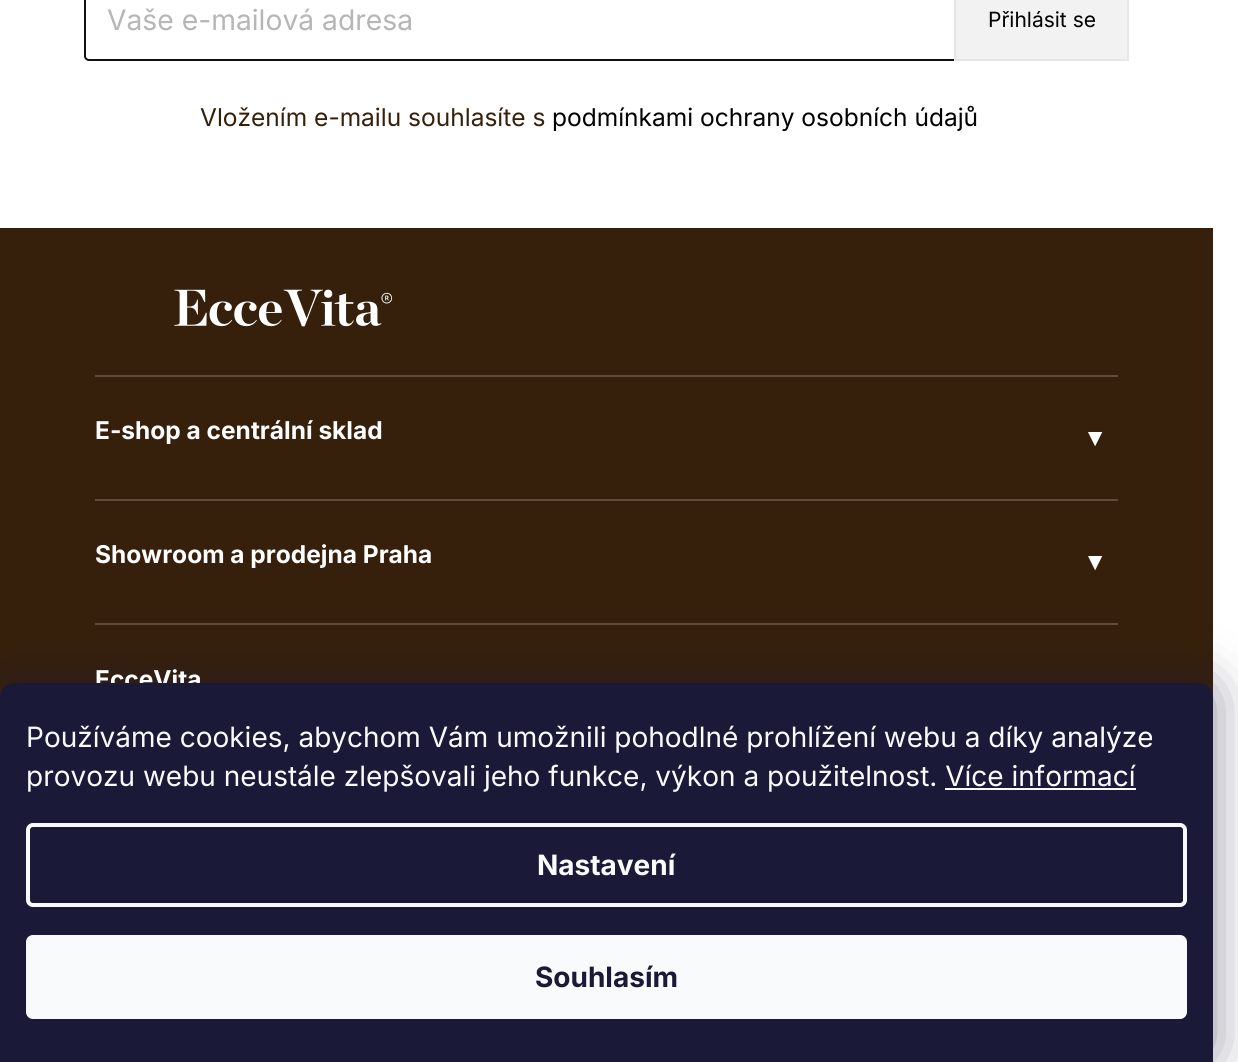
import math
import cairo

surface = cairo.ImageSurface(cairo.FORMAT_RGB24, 1238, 1062)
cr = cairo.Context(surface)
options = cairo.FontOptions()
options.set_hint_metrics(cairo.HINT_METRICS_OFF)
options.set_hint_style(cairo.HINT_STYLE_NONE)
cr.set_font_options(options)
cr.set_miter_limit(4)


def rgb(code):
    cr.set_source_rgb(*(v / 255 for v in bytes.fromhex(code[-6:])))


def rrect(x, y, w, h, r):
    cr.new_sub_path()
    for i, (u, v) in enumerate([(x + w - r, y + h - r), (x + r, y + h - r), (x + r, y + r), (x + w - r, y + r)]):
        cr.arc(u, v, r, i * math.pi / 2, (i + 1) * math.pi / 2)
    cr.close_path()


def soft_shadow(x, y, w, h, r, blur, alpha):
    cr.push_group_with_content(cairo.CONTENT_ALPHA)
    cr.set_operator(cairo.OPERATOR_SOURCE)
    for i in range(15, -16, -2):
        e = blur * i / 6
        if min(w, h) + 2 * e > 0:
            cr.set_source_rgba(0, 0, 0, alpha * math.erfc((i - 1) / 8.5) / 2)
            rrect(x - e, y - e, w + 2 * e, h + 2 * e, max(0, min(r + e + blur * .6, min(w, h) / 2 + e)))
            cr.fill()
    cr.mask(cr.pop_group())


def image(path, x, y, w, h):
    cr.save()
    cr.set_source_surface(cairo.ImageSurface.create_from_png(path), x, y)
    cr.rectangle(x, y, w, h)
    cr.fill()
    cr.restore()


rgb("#ffffff")
cr.paint()
rrect(85, -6, 1043, 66, 4)
rgb("#0f1213")
cr.stroke()
rgb("#f2f2f2")
cr.rectangle(955, -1, 173, 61)
cr.fill_preserve()
rgb("#e6e6e6")
cr.stroke()
rgb("#36200b")
cr.rectangle(0, 228, 1213, 469)
cr.fill()
image("img/1.png", 174, 289, 219, 38)
for x, y, w, h, color in [
    (95, 375, 1023, 2, "#5e4d3c"),
    (95, 499, 1023, 2, "#5e4d3c"),
    (95, 623, 1023, 2, "#5e4d3c"),
]:
    rgb(color)
    cr.rectangle(x, y, w, h)
    cr.fill()
rgb("#1b1939")
soft_shadow(0, 683, 1213, 379, 14, 26, 0.5)
cr.select_font_face("Inter")
cr.set_font_size(28.25)
rgb("#b6b6b6")
cr.move_to(107, 30)
cr.show_text("Vaše e-mailová adresa")
cr.set_font_size(21)
rgb("#000000")
cr.move_to(988, 27)
cr.show_text("Přihlásit se")
cr.set_font_size(24.5)
rgb("#36200b")
cr.move_to(200, 126)
cr.show_text("Vložením e-mailu souhlasíte s")
rgb("#000000")
cr.move_to(552, 126)
cr.show_text("podmínkami ochrany osobních údajů")
cr.select_font_face("Inter", cairo.FONT_SLANT_NORMAL, cairo.FONT_WEIGHT_BOLD)
rgb("#ffffff")
cr.move_to(95, 439)
cr.show_text("E-shop a centrální sklad")
cr.select_font_face("Liberation Serif")
cr.move_to(1083, 446)
cr.show_text("▼")
cr.select_font_face("Inter", cairo.FONT_SLANT_NORMAL, cairo.FONT_WEIGHT_BOLD)
cr.move_to(95, 563)
cr.show_text("Showroom a prodejna Praha")
cr.select_font_face("Liberation Serif")
cr.move_to(1083, 570)
cr.show_text("▼")
cr.select_font_face("Inter", cairo.FONT_SLANT_NORMAL, cairo.FONT_WEIGHT_BOLD)
cr.move_to(95, 688)
cr.show_text("EcceVita")
rgb("#1a1937")
cr.new_path()
cr.move_to(14, 683)
cr.line_to(1199, 683)
cr.curve_to(1206.5, 683, 1213, 689.5, 1213, 697)
cr.line_to(1213, 1062)
cr.line_to(0, 1062)
cr.line_to(0, 697)
cr.curve_to(0, 689.5, 6.5, 683, 14, 683)
cr.close_path()
cr.fill()
cr.select_font_face("Inter")
cr.set_font_size(28)
rgb("#f8fafb")
cr.move_to(26, 747)
cr.show_text("Používáme cookies, abychom Vám umožnili pohodlné prohlížení webu a díky analýze")
cr.move_to(26, 786)
cr.show_text("provozu webu neustále zlepšovali jeho funkce, výkon a použitelnost. Více informací")
cr.rectangle(945, 788, 191, 2)
cr.fill()
rrect(28, 825, 1157, 80, 5)
cr.set_line_width(4)
cr.stroke()
cr.select_font_face("Inter", cairo.FONT_SLANT_NORMAL, cairo.FONT_WEIGHT_BOLD)
cr.move_to(537, 875)
cr.show_text("Nastavení")
rrect(26, 935, 1161, 84, 7)
cr.fill()
rgb("#1a1937")
cr.move_to(535, 987)
cr.show_text("Souhlasím")
surface.write_to_png("page.png")
